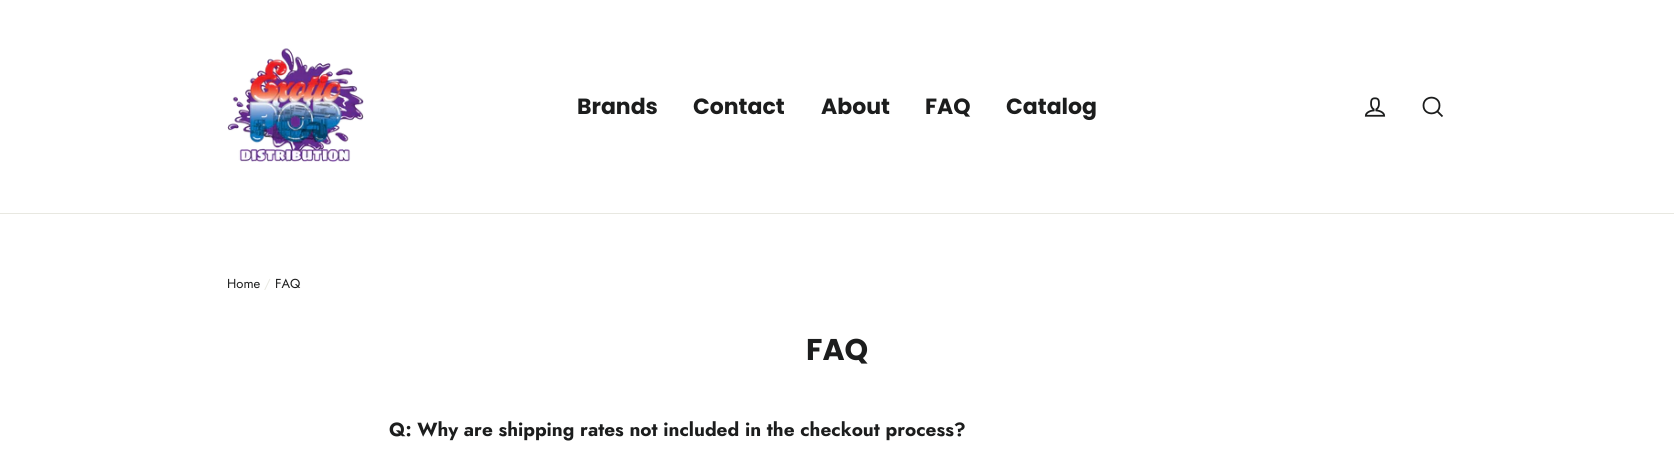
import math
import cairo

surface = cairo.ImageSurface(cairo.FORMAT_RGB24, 1674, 467)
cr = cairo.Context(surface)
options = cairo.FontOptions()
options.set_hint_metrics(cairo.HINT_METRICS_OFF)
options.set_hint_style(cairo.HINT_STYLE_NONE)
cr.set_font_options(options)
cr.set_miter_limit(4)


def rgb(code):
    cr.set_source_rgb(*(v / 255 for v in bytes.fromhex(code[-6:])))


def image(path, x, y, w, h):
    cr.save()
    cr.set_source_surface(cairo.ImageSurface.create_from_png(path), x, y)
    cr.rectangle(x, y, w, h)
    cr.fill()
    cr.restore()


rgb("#ffffff")
cr.paint()
rgb("#e8e8e1")
cr.rectangle(0, 213, 1674, 1)
cr.fill()
image("img/1.png", 227, 48, 137, 114)
image("img/2.png", 1364, 97, 22, 20)
cr.new_path()
cr.move_to(1439.5, 105.5)
cr.curve_to(1439.5, 116, 1423.5, 116, 1423.5, 105.5)
cr.curve_to(1423.5, 95, 1439.5, 95, 1439.5, 105.5)
cr.close_path()
cr.move_to(1442.5, 116.5)
cr.line_to(1437.5, 111.5)
rgb("#1c1d1d")
cr.set_line_width(1.8)
cr.stroke()
cr.select_font_face("Poppins", cairo.FONT_SLANT_NORMAL, cairo.FONT_WEIGHT_BOLD)
cr.set_font_size(22)
for x, y, s in [
    (577, 114, "Brands"),
    (693, 114, "Contact"),
    (821, 114, "About"),
    (925, 114, "FAQ"),
    (1006, 114, "Catalog"),
]:
    cr.move_to(x, y)
    cr.show_text(s)
cr.select_font_face("Jost")
cr.set_font_size(13)
cr.move_to(227, 288)
cr.show_text("Home")
rgb("#e8e8e1")
cr.move_to(264, 288)
cr.show_text("/")
rgb("#1c1d1d")
cr.move_to(275, 288)
cr.show_text("FAQ")
cr.select_font_face("Poppins", cairo.FONT_SLANT_NORMAL, cairo.FONT_WEIGHT_BOLD)
cr.set_font_size(30)
cr.move_to(806, 360)
cr.show_text("FAQ")
cr.select_font_face("Jost", cairo.FONT_SLANT_NORMAL, cairo.FONT_WEIGHT_BOLD)
cr.set_font_size(19)
cr.move_to(389, 436)
cr.show_text("Q: Why are shipping rates not included in the checkout process?")
surface.write_to_png("page.png")
